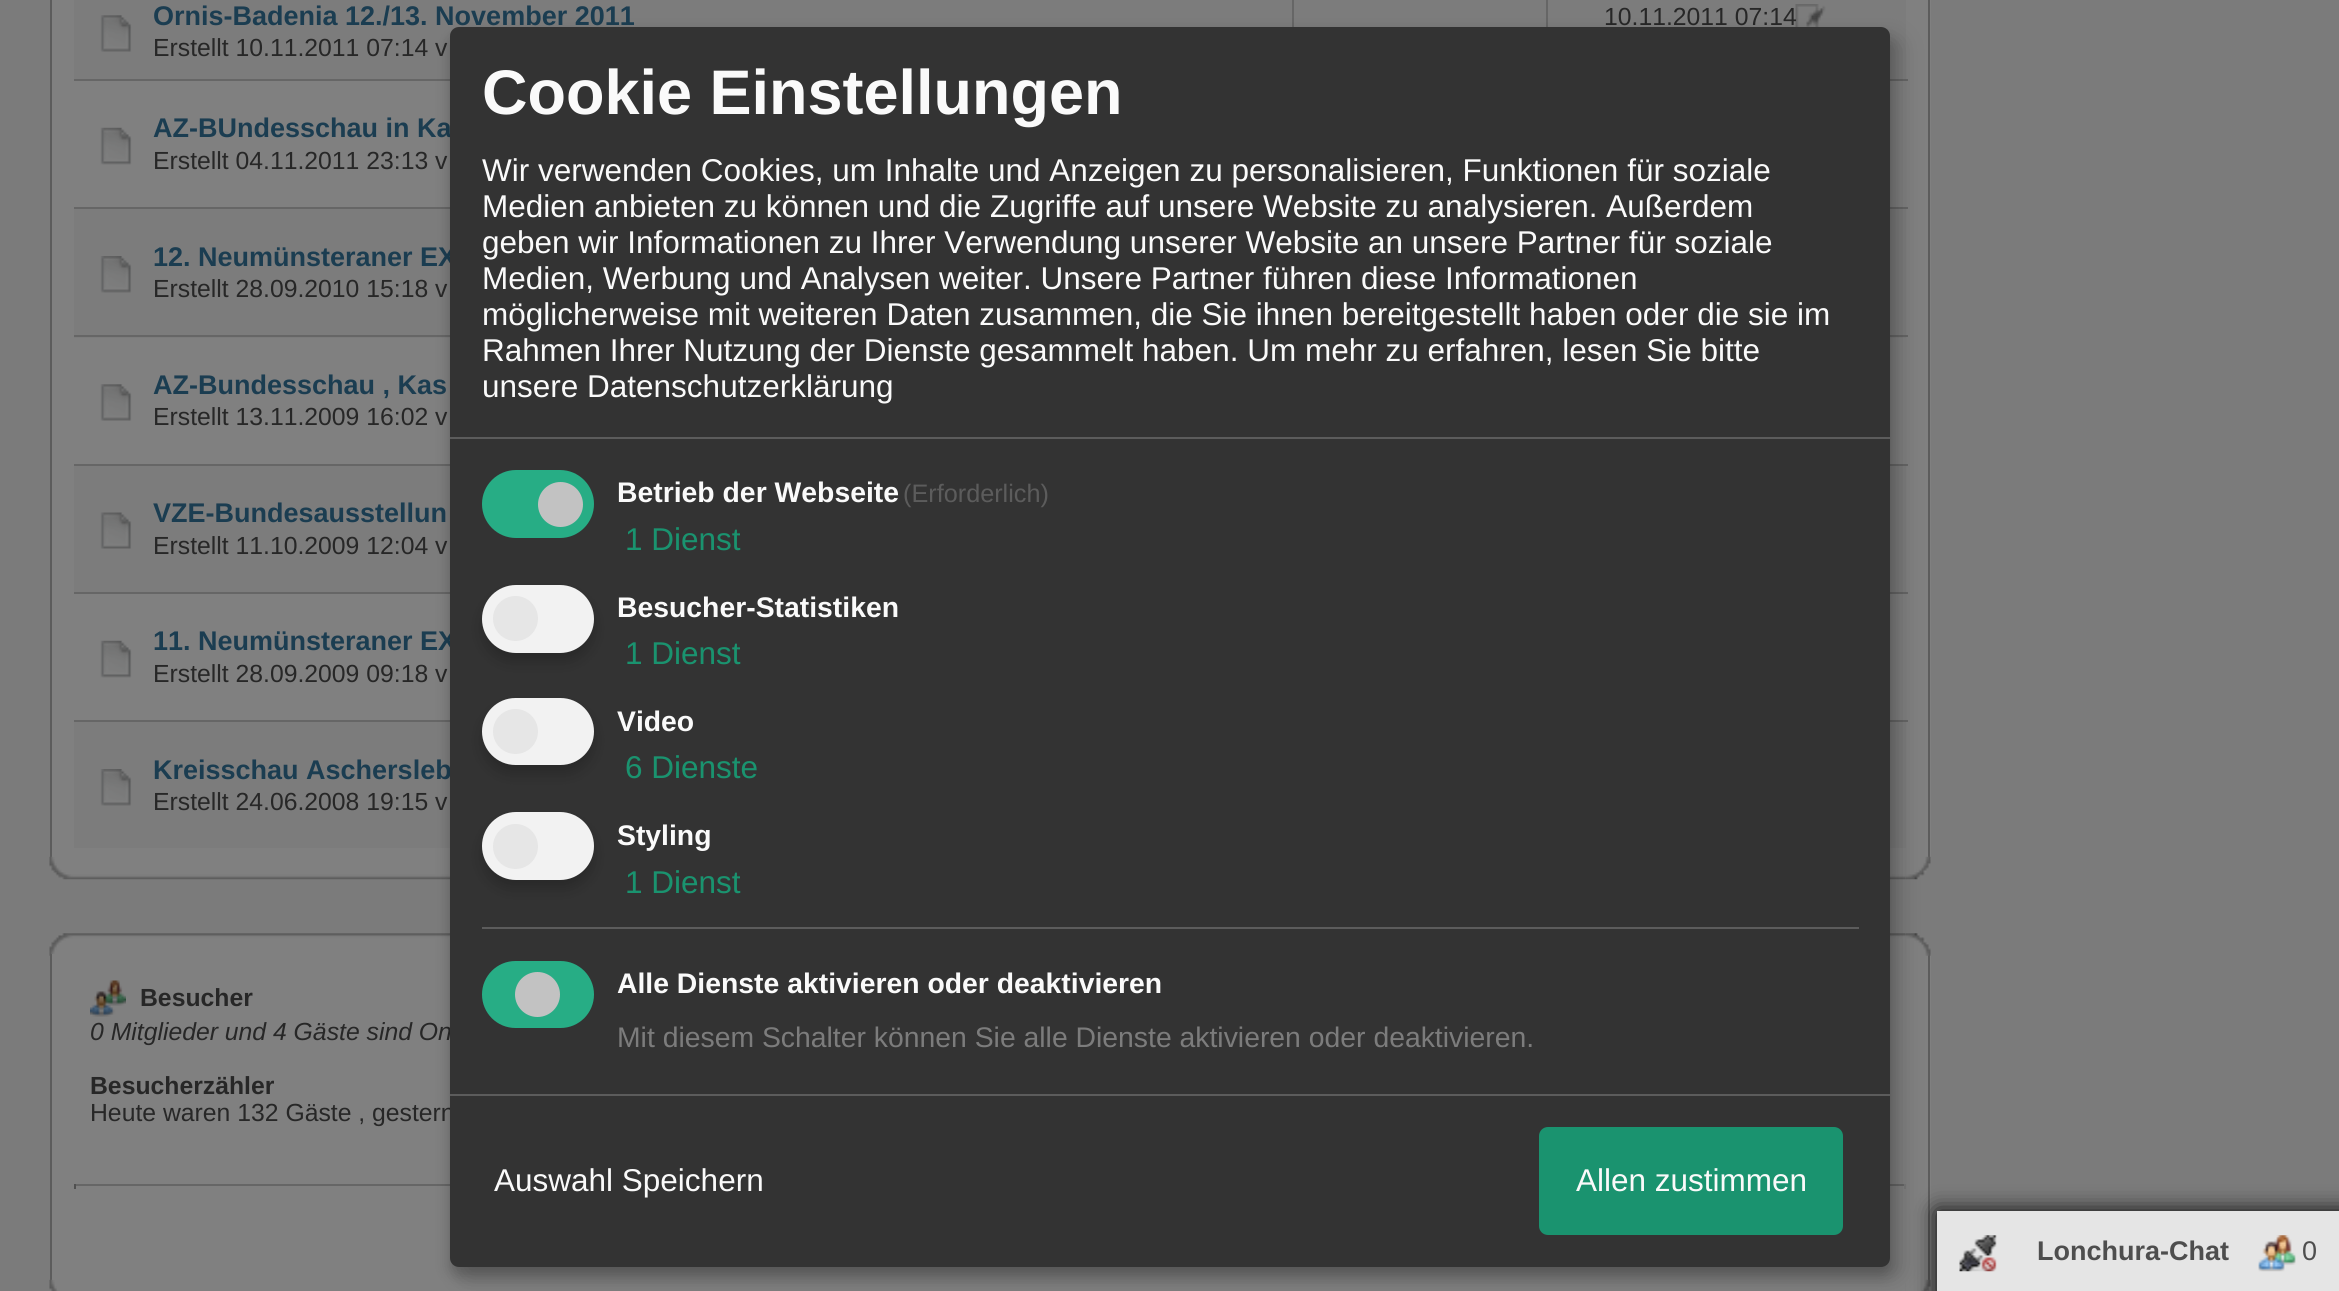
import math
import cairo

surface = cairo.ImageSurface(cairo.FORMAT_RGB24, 2339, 1291)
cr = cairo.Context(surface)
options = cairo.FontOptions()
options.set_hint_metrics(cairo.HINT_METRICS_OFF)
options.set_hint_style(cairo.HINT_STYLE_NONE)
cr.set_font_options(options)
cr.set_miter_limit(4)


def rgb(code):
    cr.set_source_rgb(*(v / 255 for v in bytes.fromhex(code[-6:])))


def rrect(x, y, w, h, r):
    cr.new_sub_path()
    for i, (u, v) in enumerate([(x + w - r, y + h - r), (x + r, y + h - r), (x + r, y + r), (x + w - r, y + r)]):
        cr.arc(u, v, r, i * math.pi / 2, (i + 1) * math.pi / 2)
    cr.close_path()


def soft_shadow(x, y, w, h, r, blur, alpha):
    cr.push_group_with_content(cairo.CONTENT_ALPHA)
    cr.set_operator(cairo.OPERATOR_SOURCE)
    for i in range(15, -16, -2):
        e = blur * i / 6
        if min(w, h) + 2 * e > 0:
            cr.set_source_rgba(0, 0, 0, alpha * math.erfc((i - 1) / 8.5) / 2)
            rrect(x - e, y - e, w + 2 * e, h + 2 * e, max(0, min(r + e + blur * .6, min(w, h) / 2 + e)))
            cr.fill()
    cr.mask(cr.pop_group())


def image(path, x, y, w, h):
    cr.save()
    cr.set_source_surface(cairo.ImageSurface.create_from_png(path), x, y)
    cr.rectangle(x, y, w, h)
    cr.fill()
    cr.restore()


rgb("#7b7b7b")
cr.paint()
for x, y, w, h, color in [
    (52, 0, 1879, 860, "#808080"),
    (1928, 0, 2, 860, "#5c5c5c"),
    (50, 0, 2, 860, "#5c5c5c"),
    (74, 0, 1832, 79, "#7c7c7c"),
]:
    rgb(color)
    cr.rectangle(x, y, w, h)
    cr.fill()
image("img/1.png", 100, 15, 32, 37)
for x, y, w, h, color in [
    (1292, 0, 2, 27, "#666666"),
    (1546, 0, 2, 27, "#666666"),
    (1890, 79, 18, 2, "#666666"),
]:
    rgb(color)
    cr.rectangle(x, y, w, h)
    cr.fill()
image("img/3.png", 100, 127, 32, 38)
for x, y, w, h, color in [
    (74, 79, 376, 2, "#666666"),
    (74, 209, 1832, 129, "#7c7c7c"),
    (1890, 207, 18, 2, "#666666"),
]:
    rgb(color)
    cr.rectangle(x, y, w, h)
    cr.fill()
image("img/4.png", 100, 256, 32, 37)
cr.rectangle(74, 207, 376, 2)
cr.fill()
cr.rectangle(1890, 335, 18, 2)
cr.fill()
image("img/5.png", 100, 384, 32, 37)
for x, y, w, h, color in [
    (74, 335, 376, 2, "#666666"),
    (74, 466, 1832, 126, "#7c7c7c"),
    (1890, 464, 18, 2, "#666666"),
]:
    rgb(color)
    cr.rectangle(x, y, w, h)
    cr.fill()
image("img/6.png", 100, 512, 32, 37)
cr.rectangle(74, 464, 376, 2)
cr.fill()
cr.rectangle(1890, 592, 18, 2)
cr.fill()
image("img/3.png", 100, 640, 32, 38)
for x, y, w, h, color in [
    (74, 592, 376, 2, "#666666"),
    (74, 722, 1832, 126, "#7c7c7c"),
    (1890, 720, 18, 2, "#666666"),
]:
    rgb(color)
    cr.rectangle(x, y, w, h)
    cr.fill()
image("img/4.png", 100, 769, 32, 37)
cr.rectangle(74, 720, 376, 2)
cr.fill()
image("img/7.png", 49, 856, 1857, 24)
image("img/8.png", 1906, 856, 25, 24)
image("img/9.png", 49, 933, 1857, 23)
rgb("#808080")
cr.rectangle(52, 954, 1879, 329)
cr.fill()
rgb("#5c5c5c")
cr.rectangle(1928, 954, 2, 329)
cr.fill()
image("img/10.png", 1906, 933, 25, 23)
cr.rectangle(50, 954, 2, 329)
cr.fill()
image("img/11.png", 90, 980, 36, 37)
for x, y, w, h, color in [
    (74, 1184, 1832, 2, "#666666"),
    (1904, 1184, 2, 5, "#777777"),
    (74, 1184, 2, 5, "#505050"),
]:
    rgb(color)
    cr.rectangle(x, y, w, h)
    cr.fill()
image("img/12.png", 49, 1279, 1857, 12)
image("img/13.png", 1906, 1279, 25, 12)
rgb("#040404")
soft_shadow(1937, 1211, 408, 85, 0, 11, 1)
rgb("#e5e5e5")
cr.rectangle(1937, 1211, 402, 80)
cr.fill()
image("img/14.png", 1959, 1235, 38, 37)
image("img/15.png", 2258, 1235, 38, 37)
cr.select_font_face("Liberation Sans", cairo.FONT_SLANT_NORMAL, cairo.FONT_WEIGHT_BOLD)
cr.set_font_size(27)
rgb("#1b3d51")
cr.move_to(153, 25)
cr.show_text("Ornis-Badenia 12./13. November 2011")
cr.select_font_face("Liberation Sans")
cr.set_font_size(24.75)
rgb("#272727")
cr.move_to(153, 56)
cr.show_text("Erstellt 10.11.2011 07:14 v")
cr.move_to(1604, 25)
cr.show_text("10.11.2011 07:14")
image("img/2.png", 1795, 4, 31, 23)
cr.select_font_face("Liberation Sans", cairo.FONT_SLANT_NORMAL, cairo.FONT_WEIGHT_BOLD)
cr.set_font_size(27)
rgb("#1b3d51")
cr.move_to(153, 137)
cr.show_text("AZ-BUndesschau in Ka")
cr.select_font_face("Liberation Sans")
cr.set_font_size(24.75)
rgb("#272727")
cr.move_to(153, 169)
cr.show_text("Erstellt 04.11.2011 23:13 v")
cr.select_font_face("Liberation Sans", cairo.FONT_SLANT_NORMAL, cairo.FONT_WEIGHT_BOLD)
cr.set_font_size(27)
rgb("#1b3d51")
cr.move_to(153, 266)
cr.show_text("12. Neumünsteraner EX")
cr.select_font_face("Liberation Sans")
cr.set_font_size(24.75)
rgb("#272727")
cr.move_to(153, 297)
cr.show_text("Erstellt 28.09.2010 15:18 v")
cr.select_font_face("Liberation Sans", cairo.FONT_SLANT_NORMAL, cairo.FONT_WEIGHT_BOLD)
cr.set_font_size(27)
rgb("#1b3d51")
cr.move_to(153, 394)
cr.show_text("AZ-Bundesschau , Kas")
cr.select_font_face("Liberation Sans")
cr.set_font_size(24.75)
rgb("#272727")
cr.move_to(153, 425)
cr.show_text("Erstellt 13.11.2009 16:02 v")
cr.select_font_face("Liberation Sans", cairo.FONT_SLANT_NORMAL, cairo.FONT_WEIGHT_BOLD)
cr.set_font_size(27)
rgb("#1b3d51")
cr.move_to(153, 522)
cr.show_text("VZE-Bundesausstellun")
cr.select_font_face("Liberation Sans")
cr.set_font_size(24.75)
rgb("#272727")
cr.move_to(153, 554)
cr.show_text("Erstellt 11.10.2009 12:04 v")
cr.select_font_face("Liberation Sans", cairo.FONT_SLANT_NORMAL, cairo.FONT_WEIGHT_BOLD)
cr.set_font_size(27)
rgb("#1b3d51")
cr.move_to(153, 650)
cr.show_text("11. Neumünsteraner EX")
cr.select_font_face("Liberation Sans")
cr.set_font_size(24.75)
rgb("#272727")
cr.move_to(153, 682)
cr.show_text("Erstellt 28.09.2009 09:18 v")
cr.select_font_face("Liberation Sans", cairo.FONT_SLANT_NORMAL, cairo.FONT_WEIGHT_BOLD)
cr.set_font_size(27)
rgb("#1b3d51")
cr.move_to(153, 779)
cr.show_text("Kreisschau Aschersleb")
cr.select_font_face("Liberation Sans")
cr.set_font_size(24.75)
rgb("#272727")
cr.move_to(153, 810)
cr.show_text("Erstellt 24.06.2008 19:15 v")
cr.select_font_face("Liberation Sans", cairo.FONT_SLANT_NORMAL, cairo.FONT_WEIGHT_BOLD)
cr.move_to(140, 1006)
cr.show_text("Besucher")
cr.select_font_face("Liberation Sans", cairo.FONT_SLANT_ITALIC)
cr.move_to(90, 1040)
cr.show_text("0 Mitglieder und 4 Gäste sind On")
cr.select_font_face("Liberation Sans", cairo.FONT_SLANT_NORMAL, cairo.FONT_WEIGHT_BOLD)
cr.move_to(90, 1094)
cr.show_text("Besucherzähler")
cr.select_font_face("Liberation Sans")
cr.move_to(90, 1121)
cr.show_text("Heute waren 132 Gäste , gestern")
cr.select_font_face("Liberation Sans", cairo.FONT_SLANT_NORMAL, cairo.FONT_WEIGHT_BOLD)
cr.set_font_size(27)
rgb("#4e4e4e")
cr.move_to(2037, 1260)
cr.show_text("Lonchura-Chat")
cr.select_font_face("Liberation Sans")
cr.move_to(2302, 1260)
cr.show_text("0")
rgb("#000000")
soft_shadow(461, 38, 1440, 1240, 9, 11, 0.19)
soft_shadow(450, 36, 1440, 1240, 9, 7, 0.2)
rgb("#333333")
rrect(450, 27, 1440, 1240, 9)
cr.fill()
rgb("#5c5c5c")
cr.rectangle(450, 437, 1440, 2)
cr.fill()
cr.select_font_face("Liberation Sans", cairo.FONT_SLANT_NORMAL, cairo.FONT_WEIGHT_BOLD)
cr.set_font_size(63)
rgb("#fafafa")
cr.move_to(482, 114)
cr.show_text("Cookie Einstellungen")
cr.select_font_face("Liberation Sans")
cr.set_font_size(31.5)
for x, y, s in [
    (482, 181, "Wir verwenden Cookies, um Inhalte und Anzeigen zu personalisieren, Funktionen für soziale"),
    (482, 217, "Medien anbieten zu können und die Zugriffe auf unsere Website zu analysieren. Außerdem"),
    (482, 253, "geben wir Informationen zu Ihrer Verwendung unserer Website an unsere Partner für soziale"),
    (482, 289, "Medien, Werbung und Analysen weiter. Unsere Partner führen diese Informationen"),
    (482, 325, "möglicherweise mit weiteren Daten zusammen, die Sie ihnen bereitgestellt haben oder die sie im"),
    (482, 361, "Rahmen Ihrer Nutzung der Dienste gesammelt haben. Um mehr zu erfahren, lesen Sie bitte"),
    (482, 397, "unsere Datenschutzerklärung"),
]:
    cr.move_to(x, y)
    cr.show_text(s)
rgb("#27ad85")
rrect(482, 470, 112, 68, 34)
cr.fill()
rgb("#c2c2c2")
cr.arc(560.5, 504.5, 22.5, 0, 2 * math.pi)
cr.fill()
cr.select_font_face("Liberation Sans", cairo.FONT_SLANT_NORMAL, cairo.FONT_WEIGHT_BOLD)
cr.set_font_size(28.35)
rgb("#fafafa")
cr.move_to(617, 502)
cr.show_text("Betrieb der Webseite")
cr.select_font_face("Liberation Sans")
cr.set_font_size(25.25)
rgb("#5c5c5c")
cr.move_to(903, 502)
cr.show_text("(Erforderlich)")
cr.set_font_size(31.5)
rgb("#1a936f")
cr.move_to(625, 550)
cr.show_text("1 Dienst")
rgb("#000000")
soft_shadow(482, 594, 112, 68, 34, 7, 0.2)
rgb("#f2f2f2")
rrect(482, 585, 112, 68, 34)
cr.fill()
rgb("#e6e6e6")
cr.arc(515.5, 618.5, 22.5, 0, 2 * math.pi)
cr.fill()
cr.select_font_face("Liberation Sans", cairo.FONT_SLANT_NORMAL, cairo.FONT_WEIGHT_BOLD)
cr.set_font_size(28.35)
rgb("#fafafa")
cr.move_to(617, 617)
cr.show_text("Besucher-Statistiken")
cr.select_font_face("Liberation Sans")
cr.set_font_size(31.5)
rgb("#1a936f")
cr.move_to(625, 664)
cr.show_text("1 Dienst")
rgb("#000000")
soft_shadow(482, 707, 112, 67, 33.5, 7, 0.2)
rgb("#f2f2f2")
rrect(482, 698, 112, 67, 33.5)
cr.fill()
rgb("#e6e6e6")
cr.arc(515.5, 731.5, 22.5, 0, 2 * math.pi)
cr.fill()
cr.select_font_face("Liberation Sans", cairo.FONT_SLANT_NORMAL, cairo.FONT_WEIGHT_BOLD)
cr.set_font_size(28.35)
rgb("#fafafa")
cr.move_to(617, 731)
cr.show_text("Video")
cr.select_font_face("Liberation Sans")
cr.set_font_size(31.5)
rgb("#1a936f")
cr.move_to(625, 778)
cr.show_text("6 Dienste")
rgb("#000000")
soft_shadow(482, 821, 112, 68, 34, 7, 0.2)
rgb("#f2f2f2")
rrect(482, 812, 112, 68, 34)
cr.fill()
rgb("#e6e6e6")
cr.arc(515.5, 846.5, 22.5, 0, 2 * math.pi)
cr.fill()
cr.select_font_face("Liberation Sans", cairo.FONT_SLANT_NORMAL, cairo.FONT_WEIGHT_BOLD)
cr.set_font_size(28.35)
rgb("#fafafa")
cr.move_to(617, 845)
cr.show_text("Styling")
cr.select_font_face("Liberation Sans")
cr.set_font_size(31.5)
rgb("#1a936f")
cr.move_to(625, 893)
cr.show_text("1 Dienst")
rgb("#5c5c5c")
cr.rectangle(482, 927, 1377, 2)
cr.fill()
rgb("#27ad85")
rrect(482, 961, 112, 67, 33.5)
cr.fill()
rgb("#c2c2c2")
cr.arc(537.5, 994.5, 22.5, 0, 2 * math.pi)
cr.fill()
cr.select_font_face("Liberation Sans", cairo.FONT_SLANT_NORMAL, cairo.FONT_WEIGHT_BOLD)
cr.set_font_size(28.35)
rgb("#fafafa")
cr.move_to(617, 993)
cr.show_text("Alle Dienste aktivieren oder deaktivieren")
cr.select_font_face("Liberation Sans")
rgb("#7c7c7c")
cr.move_to(617, 1047)
cr.show_text("Mit diesem Schalter können Sie alle Dienste aktivieren oder deaktivieren.")
rgb("#5c5c5c")
cr.rectangle(450, 1094, 1440, 2)
cr.fill()
cr.set_font_size(31.5)
rgb("#fafafa")
cr.move_to(494, 1191)
cr.show_text("Auswahl Speichern")
rgb("#1a936f")
rrect(1539, 1127, 304, 108, 9)
cr.fill()
rgb("#fafafa")
cr.move_to(1576, 1191)
cr.show_text("Allen zustimmen")
surface.write_to_png("page.png")
